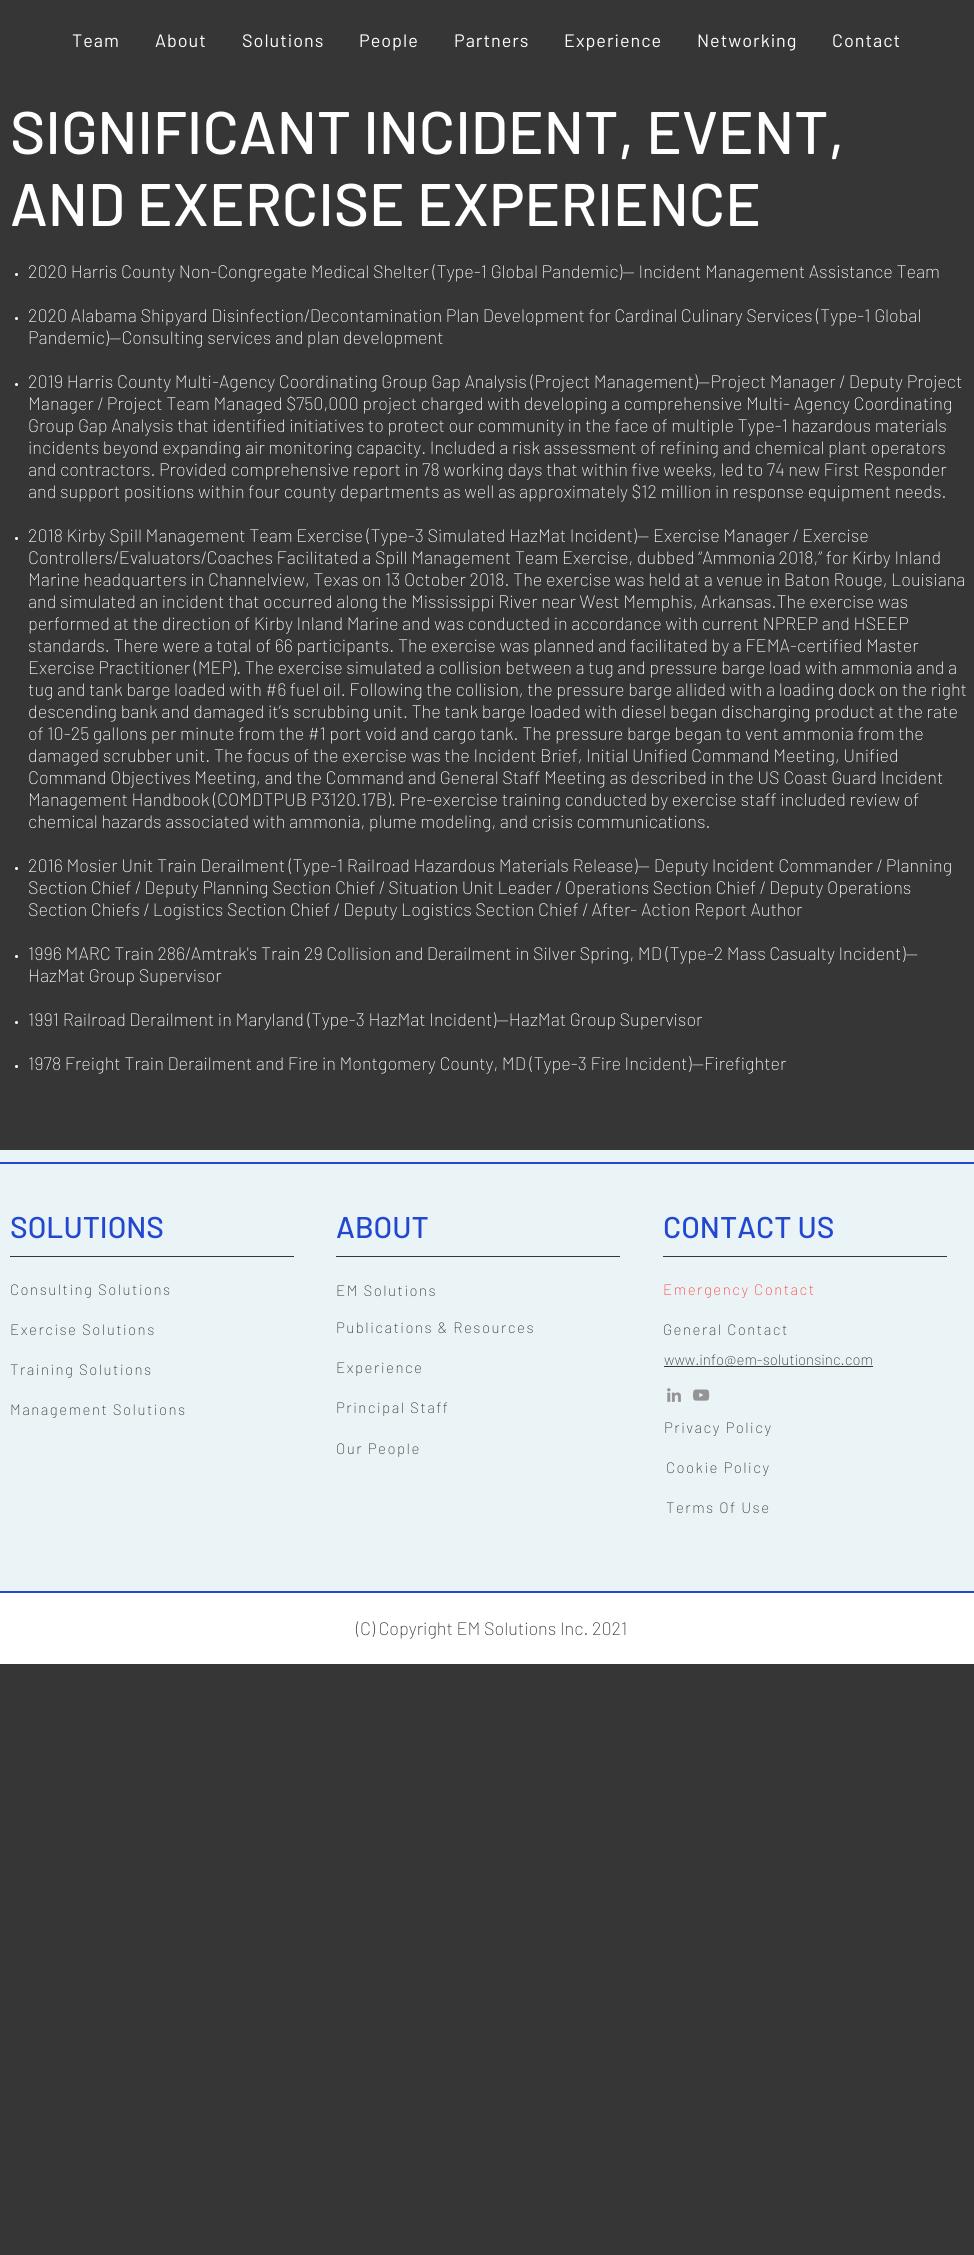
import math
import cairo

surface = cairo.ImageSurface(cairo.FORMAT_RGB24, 974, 2255)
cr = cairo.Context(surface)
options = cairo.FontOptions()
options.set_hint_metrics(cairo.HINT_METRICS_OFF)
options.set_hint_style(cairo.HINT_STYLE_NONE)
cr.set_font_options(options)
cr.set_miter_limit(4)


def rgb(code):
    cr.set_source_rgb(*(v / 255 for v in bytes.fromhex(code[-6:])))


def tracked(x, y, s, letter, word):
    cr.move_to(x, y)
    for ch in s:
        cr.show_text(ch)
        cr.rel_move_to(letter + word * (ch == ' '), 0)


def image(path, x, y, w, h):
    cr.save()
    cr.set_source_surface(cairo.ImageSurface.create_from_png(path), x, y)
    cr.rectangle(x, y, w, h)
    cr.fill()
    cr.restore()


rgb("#363636")
cr.paint()
rgb("#ffffff")
cr.arc(16.5, 274.5, 1.5, 0, 2 * math.pi)
cr.fill()
cr.arc(16.5, 318.5, 1.5, 0, 2 * math.pi)
cr.fill()
cr.arc(16.5, 384.5, 1.5, 0, 2 * math.pi)
cr.fill()
cr.arc(16.5, 538.5, 1.5, 0, 2 * math.pi)
cr.fill()
cr.arc(16.5, 868.5, 1.5, 0, 2 * math.pi)
cr.fill()
cr.arc(16.5, 956.5, 1.5, 0, 2 * math.pi)
cr.fill()
cr.arc(16.5, 1022.5, 1.5, 0, 2 * math.pi)
cr.fill()
cr.arc(16.5, 1066.5, 1.5, 0, 2 * math.pi)
cr.fill()
for x, y, w, h, color in [
    (0, 1150, 974, 441, "#eaf4f6"),
    (0, 1162, 974, 2, "#2248d1"),
    (10, 1256, 284, 1, "#363636"),
    (336, 1256, 284, 1, "#363636"),
    (663, 1256, 284, 1, "#363636"),
    (664, 1366, 209, 1, "#363636"),
]:
    rgb(color)
    cr.rectangle(x, y, w, h)
    cr.fill()
image("img/1.png", 667, 1388, 14, 14)
image("img/2.png", 692, 1389, 18, 12)
rgb("#2248d1")
cr.rectangle(0, 1591, 974, 2)
cr.fill()
rgb("#ffffff")
cr.rectangle(0, 1593, 974, 71)
cr.fill()
cr.select_font_face("Barlow")
cr.set_font_size(18)
for x, y, s in [
    (72, 47, "Team"),
    (155, 47, "About"),
    (242, 47, "Solutions"),
    (359, 47, "People"),
    (454, 47, "Partners"),
    (564, 47, "Experience"),
    (697, 47, "Networking"),
    (832, 47, "Contact"),
]:
    tracked(x, y, s, 1, 0)
cr.select_font_face("Barlow Medium")
cr.set_font_size(60)
cr.move_to(10, 154)
cr.show_text("SIGNIFICANT INCIDENT, EVENT,")
cr.move_to(10, 226)
cr.show_text("AND EXERCISE EXPERIENCE")
cr.select_font_face("Barlow ExtraLight")
cr.set_font_size(18)
for x, y, s in [
    (28, 278, "2020 Harris County Non-Congregate Medical Shelter (Type-1 Global Pandemic)— Incident Management Assistance Team"),
    (28, 322, "2020 Alabama Shipyard Disinfection/Decontamination Plan Development for Cardinal Culinary Services (Type-1 Global"),
    (28, 344, "Pandemic)—Consulting services and plan development"),
    (28, 388, "2019 Harris County Multi-Agency Coordinating Group Gap Analysis (Project Management)—Project Manager / Deputy Project"),
    (28, 410, "Manager / Project Team Managed $750,000 project charged with developing a comprehensive Multi- Agency Coordinating"),
    (28, 432, "Group Gap Analysis that identified initiatives to protect our community in the face of multiple Type-1 hazardous materials"),
    (28, 454, "incidents beyond expanding air monitoring capacity. Included a risk assessment of refining and chemical plant operators"),
    (28, 476, "and contractors. Provided comprehensive report in 78 working days that within five weeks, led to 74 new First Responder"),
    (28, 498, "and support positions within four county departments as well as approximately $12 million in response equipment needs."),
    (28, 542, "2018 Kirby Spill Management Team Exercise (Type-3 Simulated HazMat Incident)— Exercise Manager / Exercise"),
    (28, 564, "Controllers/Evaluators/Coaches Facilitated a Spill Management Team Exercise, dubbed “Ammonia 2018,” for Kirby Inland"),
    (28, 586, "Marine headquarters in Channelview, Texas on 13 October 2018. The exercise was held at a venue in Baton Rouge, Louisiana"),
    (28, 608, "and simulated an incident that occurred along the Mississippi River near West Memphis, Arkansas.The exercise was"),
    (28, 630, "performed at the direction of Kirby Inland Marine and was conducted in accordance with current NPREP and HSEEP"),
    (28, 652, "standards. There were a total of 66 participants. The exercise was planned and facilitated by a FEMA-certified Master"),
    (28, 674, "Exercise Practitioner (MEP). The exercise simulated a collision between a tug and pressure barge load with ammonia and a"),
    (28, 696, "tug and tank barge loaded with #6 fuel oil. Following the collision, the pressure barge allided with a loading dock on the right"),
    (28, 718, "descending bank and damaged it’s scrubbing unit. The tank barge loaded with diesel began discharging product at the rate"),
    (28, 740, "of 10-25 gallons per minute from the #1 port void and cargo tank. The pressure barge began to vent ammonia from the"),
    (28, 762, "damaged scrubber unit. The focus of the exercise was the Incident Brief, Initial Unified Command Meeting, Unified"),
    (28, 784, "Command Objectives Meeting, and the Command and General Staff Meeting as described in the US Coast Guard Incident"),
    (28, 806, "Management Handbook (COMDTPUB P3120.17B). Pre-exercise training conducted by exercise staff included review of"),
    (28, 828, "chemical hazards associated with ammonia, plume modeling, and crisis communications."),
    (28, 872, "2016 Mosier Unit Train Derailment (Type-1 Railroad Hazardous Materials Release)— Deputy Incident Commander / Planning"),
    (28, 894, "Section Chief / Deputy Planning Section Chief / Situation Unit Leader / Operations Section Chief / Deputy Operations"),
    (28, 916, "Section Chiefs / Logistics Section Chief / Deputy Logistics Section Chief / After- Action Report Author"),
    (28, 960, "1996 MARC Train 286/Amtrak's Train 29 Collision and Derailment in Silver Spring, MD (Type-2 Mass Casualty Incident)—"),
    (28, 982, "HazMat Group Supervisor"),
    (28, 1026, "1991 Railroad Derailment in Maryland (Type-3 HazMat Incident)—HazMat Group Supervisor"),
    (28, 1070, "1978 Freight Train Derailment and Fire in Montgomery County, MD (Type-3 Fire Incident)—Firefighter"),
]:
    cr.move_to(x, y)
    cr.show_text(s)
cr.select_font_face("Barlow Medium")
cr.set_font_size(30)
rgb("#2248d1")
cr.move_to(10, 1238)
cr.show_text("SOLUTIONS")
cr.select_font_face("Barlow ExtraLight")
cr.set_font_size(15)
rgb("#363636")
for x, y, s in [
    (10, 1295, "Consulting Solutions"),
    (10, 1335, "Exercise Solutions"),
    (10, 1375, "Training Solutions"),
    (10, 1415, "Management Solutions"),
]:
    tracked(x, y, s, 1.5, 0)
cr.select_font_face("Barlow Medium")
cr.set_font_size(30)
rgb("#2248d1")
cr.move_to(336, 1238)
cr.show_text("ABOUT")
cr.select_font_face("Barlow ExtraLight")
cr.set_font_size(15)
rgb("#363636")
for x, y, s in [
    (336, 1296, "EM Solutions"),
    (336, 1333, "Publications & Resources"),
    (336, 1373, "Experience"),
    (336, 1413, "Principal Staff"),
    (336, 1454, "Our People"),
]:
    tracked(x, y, s, 1.5, 0)
cr.select_font_face("Barlow Medium")
cr.set_font_size(30)
rgb("#2248d1")
cr.move_to(663, 1238)
cr.show_text("CONTACT US")
cr.select_font_face("Barlow ExtraLight")
cr.set_font_size(15)
rgb("#ff4040")
tracked(663, 1295, "Emergency Contact", 1.5, 0)
rgb("#363636")
tracked(663, 1335, "General Contact", 1.5, 0)
cr.move_to(664, 1365)
cr.show_text("www.info@em-solutionsinc.com")
for x, y, s in [
    (664, 1433, "Privacy Policy"),
    (666, 1473, "Cookie Policy"),
    (666, 1513, "Terms Of Use"),
]:
    tracked(x, y, s, 1.5, 0)
cr.set_font_size(18)
cr.move_to(356, 1635)
cr.show_text("(C) Copyright EM Solutions Inc. 2021")
surface.write_to_png("page.png")
